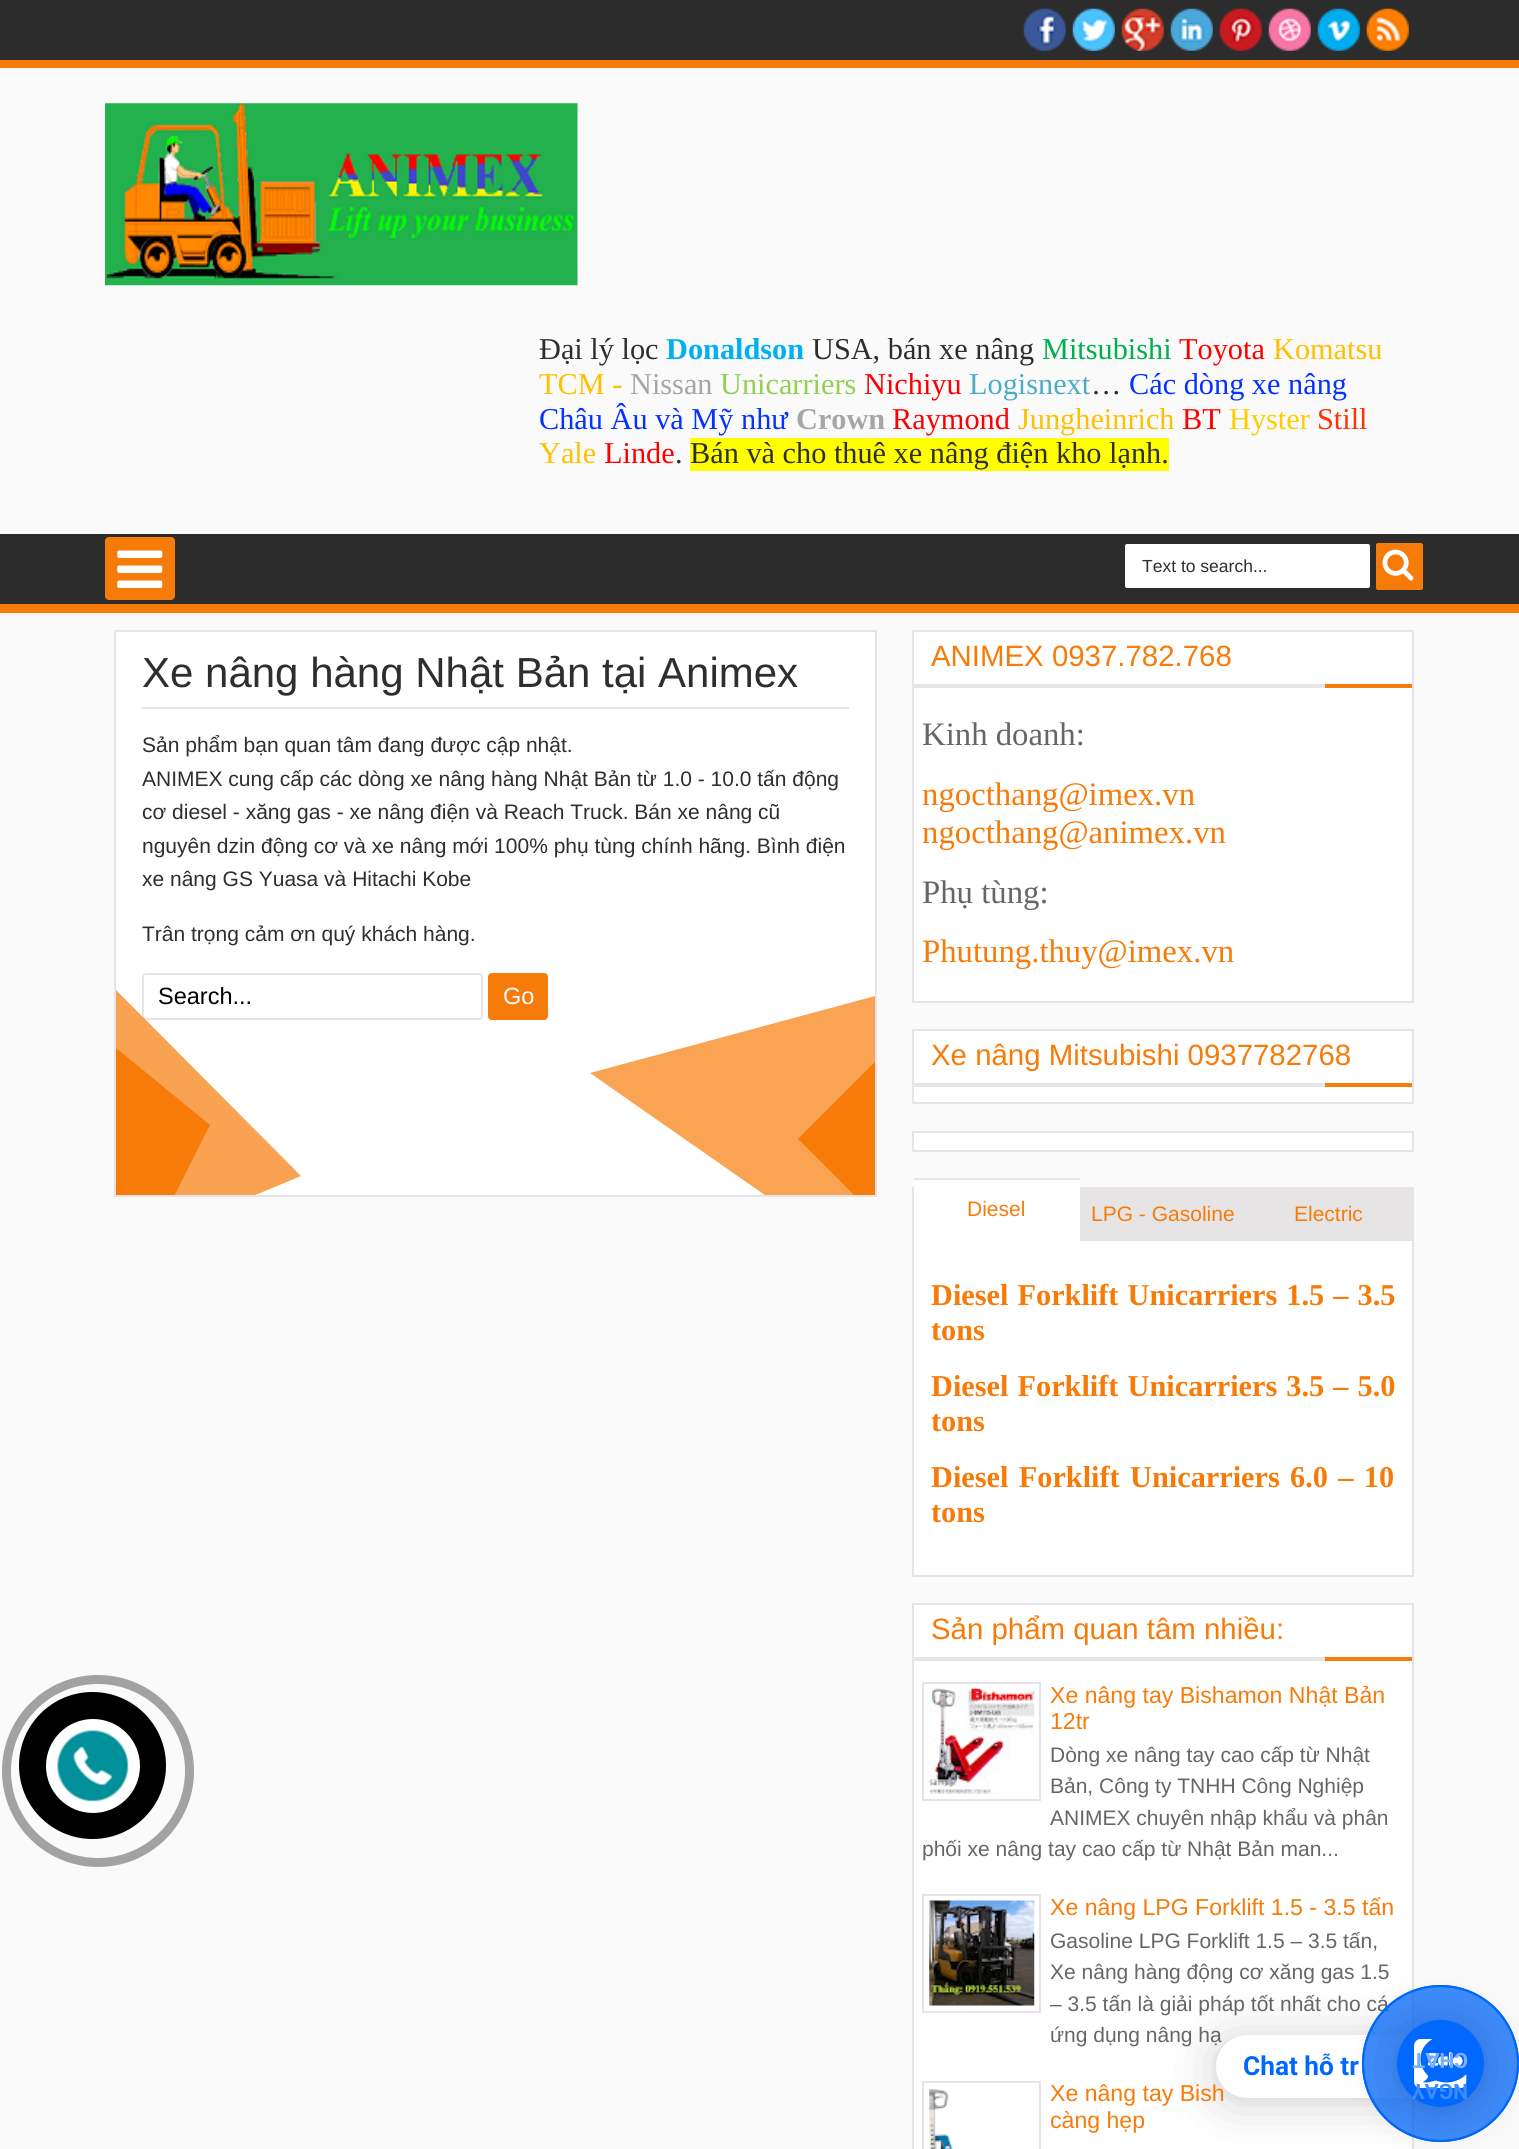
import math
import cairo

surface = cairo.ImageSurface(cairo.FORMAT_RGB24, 1519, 2149)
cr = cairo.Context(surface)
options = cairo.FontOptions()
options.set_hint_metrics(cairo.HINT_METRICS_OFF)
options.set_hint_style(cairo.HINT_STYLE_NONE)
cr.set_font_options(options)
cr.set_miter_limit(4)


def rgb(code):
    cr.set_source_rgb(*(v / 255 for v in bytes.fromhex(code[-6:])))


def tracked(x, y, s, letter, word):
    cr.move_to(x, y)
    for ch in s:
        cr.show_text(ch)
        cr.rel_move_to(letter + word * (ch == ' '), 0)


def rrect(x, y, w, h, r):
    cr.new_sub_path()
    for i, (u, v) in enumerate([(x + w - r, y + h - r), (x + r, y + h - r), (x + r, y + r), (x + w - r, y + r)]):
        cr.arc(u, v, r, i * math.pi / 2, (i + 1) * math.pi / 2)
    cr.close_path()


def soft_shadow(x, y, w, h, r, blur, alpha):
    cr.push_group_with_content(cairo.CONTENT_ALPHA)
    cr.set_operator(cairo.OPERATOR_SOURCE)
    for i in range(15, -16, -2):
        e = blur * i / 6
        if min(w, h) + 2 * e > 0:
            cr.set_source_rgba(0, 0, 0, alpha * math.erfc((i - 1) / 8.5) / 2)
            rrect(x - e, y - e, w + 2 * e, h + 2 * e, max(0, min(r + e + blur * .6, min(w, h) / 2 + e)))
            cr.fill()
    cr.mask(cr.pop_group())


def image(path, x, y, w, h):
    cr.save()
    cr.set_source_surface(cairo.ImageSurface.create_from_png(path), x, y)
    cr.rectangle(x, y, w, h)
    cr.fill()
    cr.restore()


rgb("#2c2c2c")
cr.paint()
rgb("#f77b09")
cr.rectangle(0, 60, 1519, 8)
cr.fill()
image("img/1.png", 1023, 8, 43, 43)
image("img/2.png", 1072, 8, 43, 43)
image("img/3.png", 1121, 8, 43, 43)
image("img/4.png", 1170, 8, 43, 43)
image("img/5.png", 1219, 8, 43, 43)
image("img/6.png", 1268, 8, 43, 43)
image("img/7.png", 1317, 8, 43, 43)
image("img/8.png", 1366, 8, 43, 43)
rgb("#fafafa")
cr.rectangle(0, 68, 1519, 466)
cr.fill()
image("img/9.png", 105, 103, 473, 183)
rgb("#ffff00")
cr.rectangle(690, 438, 479, 33)
cr.fill()
rgb("#f77b09")
cr.rectangle(0, 604, 1519, 9)
cr.fill()
rrect(105, 537, 70, 63, 4)
cr.fill()
image("img/10.png", 117, 550, 46, 38)
rgb("#ffffff")
rrect(1125, 544, 245, 44, 2)
cr.fill()
rgb("#f77b09")
rrect(1376, 543, 47, 47, 2)
cr.fill()
image("img/11.png", 1382, 549, 32, 32)
rgb("#fafafa")
cr.rectangle(0, 613, 1519, 1536)
cr.fill()
rgb("#ffffff")
cr.rectangle(115, 631, 761, 565)
cr.fill_preserve()
rgb("#e6e4e4")
cr.stroke()
cr.rectangle(142, 707, 707, 2)
cr.fill()
rrect(143, 974, 339, 45, 3)
cr.stroke()
rgb("#f77b09")
rrect(488, 973, 60, 47, 4)
cr.fill()
cr.save()
cr.rectangle(116, 632, 759, 563)
cr.clip()
rgb("#f9a353")
cr.new_path()
cr.move_to(875, 996)
cr.line_to(875, 1272)
cr.line_to(590, 1073)
cr.close_path()
cr.fill()
rgb("#f77b09")
cr.new_path()
cr.move_to(875, 1062)
cr.line_to(875, 1216)
cr.line_to(798, 1139)
cr.close_path()
cr.fill()
cr.restore()
for x, y, w, h, color in [
    (914, 632, 498, 52, "#ffffff"),
    (912, 630, 502, 2, "#e6e4e4"),
    (1412, 630, 2, 54, "#e6e4e4"),
    (912, 630, 2, 54, "#e6e4e4"),
    (914, 688, 498, 313, "#ffffff"),
]:
    rgb(color)
    cr.rectangle(x, y, w, h)
    cr.fill()
cr.rectangle(913, 685, 500, 317)
rgb("#e6e4e4")
cr.stroke()
for x, y, w, h, color in [
    (914, 686, 411, 2, "#e6e4e4"),
    (1325, 684, 87, 4, "#f77b09"),
    (914, 1031, 498, 52, "#ffffff"),
    (912, 1029, 502, 2, "#e6e4e4"),
    (1412, 1029, 2, 54, "#e6e4e4"),
    (912, 1029, 2, 54, "#e6e4e4"),
    (914, 1087, 498, 15, "#ffffff"),
]:
    rgb(color)
    cr.rectangle(x, y, w, h)
    cr.fill()
cr.rectangle(913, 1084, 500, 19)
rgb("#e6e4e4")
cr.stroke()
cr.rectangle(914, 1085, 411, 2)
cr.fill()
rgb("#f77b09")
cr.rectangle(1325, 1083, 87, 4)
cr.fill()
cr.arc(98, 1771, 91.5, 0, 2 * math.pi)
rgb("#a2a2a2")
cr.set_line_width(9)
cr.stroke()
rgb("#000000")
cr.arc(92.5, 1765.5, 73.5, 0, 2 * math.pi)
cr.fill()
rgb("#ffffff")
cr.arc(93, 1766, 47, 0, 2 * math.pi)
cr.fill()
image("img/12.png", 57, 1730, 72, 72)
cr.rectangle(913, 1132, 500, 19)
cr.fill_preserve()
rgb("#e6e4e4")
cr.set_line_width(2)
cr.stroke()
rgb("#ffffff")
cr.rectangle(914, 1661, 498, 488)
cr.fill()
cr.rectangle(913, 1658, 500, 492)
rgb("#e6e4e4")
cr.stroke()
rgb("#000000")
soft_shadow(1216, 2039, 202, 63, 31.5, 28, 0.16)
soft_shadow(1216, 2037, 202, 63, 31.5, 5, 0.06)
rgb("#ffffff")
cr.rectangle(914, 1241, 498, 334)
cr.fill()
cr.rectangle(913, 1188, 500, 388)
rgb("#e6e4e4")
cr.stroke()
for x, y, w, h, color in [
    (914, 1180, 166, 61, "#ffffff"),
    (914, 1178, 166, 2, "#e6e4e4"),
    (1080, 1189, 332, 52, "#e6e4e4"),
    (914, 1605, 498, 52, "#ffffff"),
    (912, 1603, 502, 2, "#e6e4e4"),
    (1412, 1603, 2, 54, "#e6e4e4"),
    (912, 1603, 2, 54, "#e6e4e4"),
    (914, 1659, 411, 2, "#e6e4e4"),
    (1325, 1657, 87, 4, "#f77b09"),
]:
    rgb(color)
    cr.rectangle(x, y, w, h)
    cr.fill()
cr.rectangle(923, 1683, 117, 117)
rgb("#e6e4e4")
cr.stroke()
image("img/14.png", 929, 1688, 106, 106)
cr.rectangle(923, 1895, 117, 117)
cr.stroke()
image("img/15.png", 929, 1900, 106, 106)
cr.rectangle(923, 2082, 117, 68)
cr.stroke()
image("img/16.png", 929, 2089, 24, 60)
cr.select_font_face("Liberation Serif")
cr.set_font_size(30.3)
rgb("#2e2e2e")
cr.move_to(539, 359)
cr.show_text("Đại lý lọc")
cr.select_font_face("Liberation Serif", cairo.FONT_SLANT_NORMAL, cairo.FONT_WEIGHT_BOLD)
rgb("#00b0f0")
cr.move_to(666, 359)
cr.show_text("Donaldson")
cr.select_font_face("Liberation Serif")
rgb("#2e2e2e")
cr.move_to(812, 359)
cr.show_text("USA, bán xe nâng")
rgb("#00b050")
cr.move_to(1042, 359)
cr.show_text("Mitsubishi")
rgb("#ff0000")
cr.move_to(1179, 359)
cr.show_text("Toyota")
rgb("#ffc000")
cr.move_to(1273, 359)
cr.show_text("Komatsu")
cr.move_to(539, 394)
cr.show_text("TCM -")
rgb("#a6a6a6")
cr.move_to(630, 394)
cr.show_text("Nissan")
rgb("#92d050")
cr.move_to(720, 394)
cr.show_text("Unicarriers")
rgb("#ff0000")
cr.move_to(864, 394)
cr.show_text("Nichiyu")
rgb("#4bacc6")
cr.move_to(969, 394)
cr.show_text("Logisnext")
rgb("#2e2e2e")
cr.move_to(1091, 394)
cr.show_text("…")
rgb("#0432ff")
cr.move_to(1129, 394)
cr.show_text("Các dòng xe nâng")
cr.move_to(539, 429)
cr.show_text("Châu Âu và Mỹ như")
cr.select_font_face("Liberation Serif", cairo.FONT_SLANT_NORMAL, cairo.FONT_WEIGHT_BOLD)
rgb("#a6a6a6")
cr.move_to(796, 429)
cr.show_text("Crown")
cr.select_font_face("Liberation Serif")
rgb("#ff0000")
cr.move_to(892, 429)
cr.show_text("Raymond")
rgb("#ffc000")
cr.move_to(1018, 429)
cr.show_text("Jungheinrich")
rgb("#ff0000")
cr.move_to(1182, 429)
cr.show_text("BT")
rgb("#ffcc00")
cr.move_to(1229, 429)
cr.show_text("Hyster")
rgb("#ff3300")
cr.move_to(1317, 429)
cr.show_text("Still")
rgb("#ffc000")
cr.move_to(539, 463)
cr.show_text("Yale")
rgb("#ff0000")
cr.move_to(604, 463)
cr.show_text("Linde")
rgb("#2e2e2e")
cr.move_to(675, 463)
cr.show_text(".")
cr.move_to(690, 463)
cr.show_text("Bán và cho thuê xe nâng điện kho lạnh.")
cr.select_font_face("Liberation Sans")
cr.set_font_size(17.5)
cr.move_to(1142, 572)
cr.show_text("Text to search...")
cr.set_font_size(42)
cr.move_to(142, 687)
cr.show_text("Xe nâng hàng Nhật Bản tại Animex")
cr.set_font_size(21)
for x, y, s in [
    (142, 752, "Sản phẩm bạn quan tâm đang được cập nhật."),
    (142, 786, "ANIMEX cung cấp các dòng xe nâng hàng Nhật Bản từ 1.0 - 10.0 tấn động"),
    (142, 819, "cơ diesel - xăng gas - xe nâng điện và Reach Truck. Bán xe nâng cũ"),
    (142, 853, "nguyên dzin động cơ và xe nâng mới 100% phụ tùng chính hãng. Bình điện"),
    (142, 886, "xe nâng GS Yuasa và Hitachi Kobe"),
    (142, 941, "Trân trọng cảm ơn quý khách hàng."),
]:
    cr.move_to(x, y)
    cr.show_text(s)
cr.set_font_size(23.5)
rgb("#000000")
cr.move_to(158, 1004)
cr.show_text("Search...")
cr.save()
cr.rectangle(116, 632, 759, 563)
cr.clip()
cr.set_source_rgba(0.969, 0.482, 0.035, 0.7)
cr.new_path()
cr.move_to(116, 1253)
cr.line_to(116, 990)
cr.line_to(301, 1176)
cr.close_path()
cr.fill()
rgb("#f77b09")
cr.new_path()
cr.move_to(116, 1311)
cr.line_to(116, 1048)
cr.line_to(210, 1125)
cr.close_path()
cr.fill()
cr.restore()
rgb("#ffffff")
cr.move_to(503, 1004)
cr.show_text("Go")
cr.set_font_size(29.4)
rgb("#f77b09")
cr.move_to(931, 666)
cr.show_text("ANIMEX 0937.782.768")
cr.select_font_face("Liberation Serif")
cr.set_font_size(32.75)
rgb("#666666")
cr.move_to(922, 745)
cr.show_text("Kinh doanh:")
rgb("#f77b09")
cr.move_to(922, 805)
cr.show_text("ngocthang@imex.vn")
cr.move_to(922, 843)
cr.show_text("ngocthang@animex.vn")
rgb("#666666")
cr.move_to(922, 903)
cr.show_text("Phụ tùng:")
rgb("#f77b09")
cr.move_to(922, 962)
cr.show_text("Phutung.thuy@imex.vn")
cr.select_font_face("Liberation Sans")
cr.set_font_size(29.4)
cr.move_to(931, 1065)
cr.show_text("Xe nâng Mitsubishi 0937782768")
cr.set_font_size(21)
for x, y, s in [
    (967, 1216, "Diesel"),
    (1091, 1221, "LPG - Gasoline"),
    (1294, 1221, "Electric"),
]:
    cr.move_to(x, y)
    cr.show_text(s)
cr.select_font_face("Liberation Serif", cairo.FONT_SLANT_NORMAL, cairo.FONT_WEIGHT_BOLD)
cr.set_font_size(30.3)
tracked(931, 1305, "Diesel Forklift Unicarriers 1.5 – 3.5", 0, 1.5)
cr.move_to(931, 1340)
cr.show_text("tons")
tracked(931, 1396, "Diesel Forklift Unicarriers 3.5 – 5.0", 0, 1.5)
cr.move_to(931, 1431)
cr.show_text("tons")
tracked(931, 1487, "Diesel Forklift Unicarriers 6.0 – 10", 0, 2.75)
cr.move_to(931, 1522)
cr.show_text("tons")
cr.select_font_face("Liberation Sans")
cr.set_font_size(29.4)
cr.move_to(931, 1639)
cr.show_text("Sản phẩm quan tâm nhiều:")
cr.set_font_size(23.1)
cr.move_to(1050, 1703)
cr.show_text("Xe nâng tay Bishamon Nhật Bản")
cr.move_to(1050, 1729)
cr.show_text("12tr")
cr.set_font_size(21)
rgb("#666666")
for x, y, s in [
    (1050, 1762, "Dòng xe nâng tay cao cấp từ Nhật"),
    (1050, 1793, "Bản, Công ty TNHH Công Nghiệp"),
    (1050, 1825, "ANIMEX chuyên nhập khẩu và phân"),
    (922, 1856, "phối xe nâng tay cao cấp từ Nhật Bản man..."),
]:
    cr.move_to(x, y)
    cr.show_text(s)
cr.set_font_size(23.1)
rgb("#f77b09")
cr.move_to(1050, 1915)
cr.show_text("Xe nâng LPG Forklift 1.5 - 3.5 tấn")
cr.set_font_size(21)
rgb("#666666")
for x, y, s in [
    (1050, 1948, "Gasoline LPG Forklift 1.5 – 3.5 tấn,"),
    (1050, 1979, "Xe nâng hàng động cơ xăng gas 1.5"),
    (1050, 2011, "– 3.5 tấn là giải pháp tốt nhất cho cá"),
    (1050, 2042, "ứng dụng nâng hạ"),
]:
    cr.move_to(x, y)
    cr.show_text(s)
cr.set_font_size(23.1)
rgb("#f77b09")
cr.move_to(1050, 2101)
cr.show_text("Xe nâng tay Bish")
rgb("#ffffff")
cr.new_path()
cr.move_to(1247.5, 2035)
cr.line_to(1418, 2035)
cr.line_to(1418, 2098)
cr.line_to(1247.5, 2098)
cr.curve_to(1230, 2098, 1216, 2084, 1216, 2066.5)
cr.curve_to(1216, 2049, 1230, 2035, 1247.5, 2035)
cr.close_path()
cr.fill()
cr.set_source_rgba(0, 0.408, 1, 0.5)
cr.arc(1440.5, 2063.5, 77.5, 0, 2 * math.pi)
cr.fill_preserve()
rgb("#0068ff")
cr.stroke()
cr.set_source_rgba(0, 0.408, 1, 0.5)
cr.arc(1440.5, 2063.5, 77.5, 0, 2 * math.pi)
cr.fill_preserve()
rgb("#0068ff")
cr.stroke()
rgb("#000000")
soft_shadow(1397, 2021, 87, 88, 43.5, 5, 0.06)
soft_shadow(1397, 2023, 87, 88, 43.5, 28, 0.16)
rgb("#0068ff")
cr.arc(1440.5, 2063.5, 43.5, 0, 2 * math.pi)
cr.fill()
image("img/13.png", 1414, 2039, 53, 49)
cr.select_font_face("Roboto", cairo.FONT_SLANT_NORMAL, cairo.FONT_WEIGHT_BOLD)
cr.set_font_size(21)
rgb("#3e8cff")
cr.save()
cr.translate(1468, 2084)
cr.rotate(180 * math.pi / 180)
cr.move_to(0, 0)
cr.show_text("NGAY")
cr.restore()
rgb("#78afff")
cr.save()
cr.translate(1468, 2053)
cr.rotate(180 * math.pi / 180)
cr.move_to(0, 0)
cr.show_text("CHAT")
cr.restore()
cr.set_font_size(26.25)
rgb("#0068ff")
cr.move_to(1243, 2075)
cr.show_text("Chat hỗ tr")
cr.select_font_face("Liberation Sans")
cr.set_font_size(23.1)
rgb("#f77b09")
cr.move_to(1050, 2128)
cr.show_text("càng hẹp")
surface.write_to_png("page.png")
